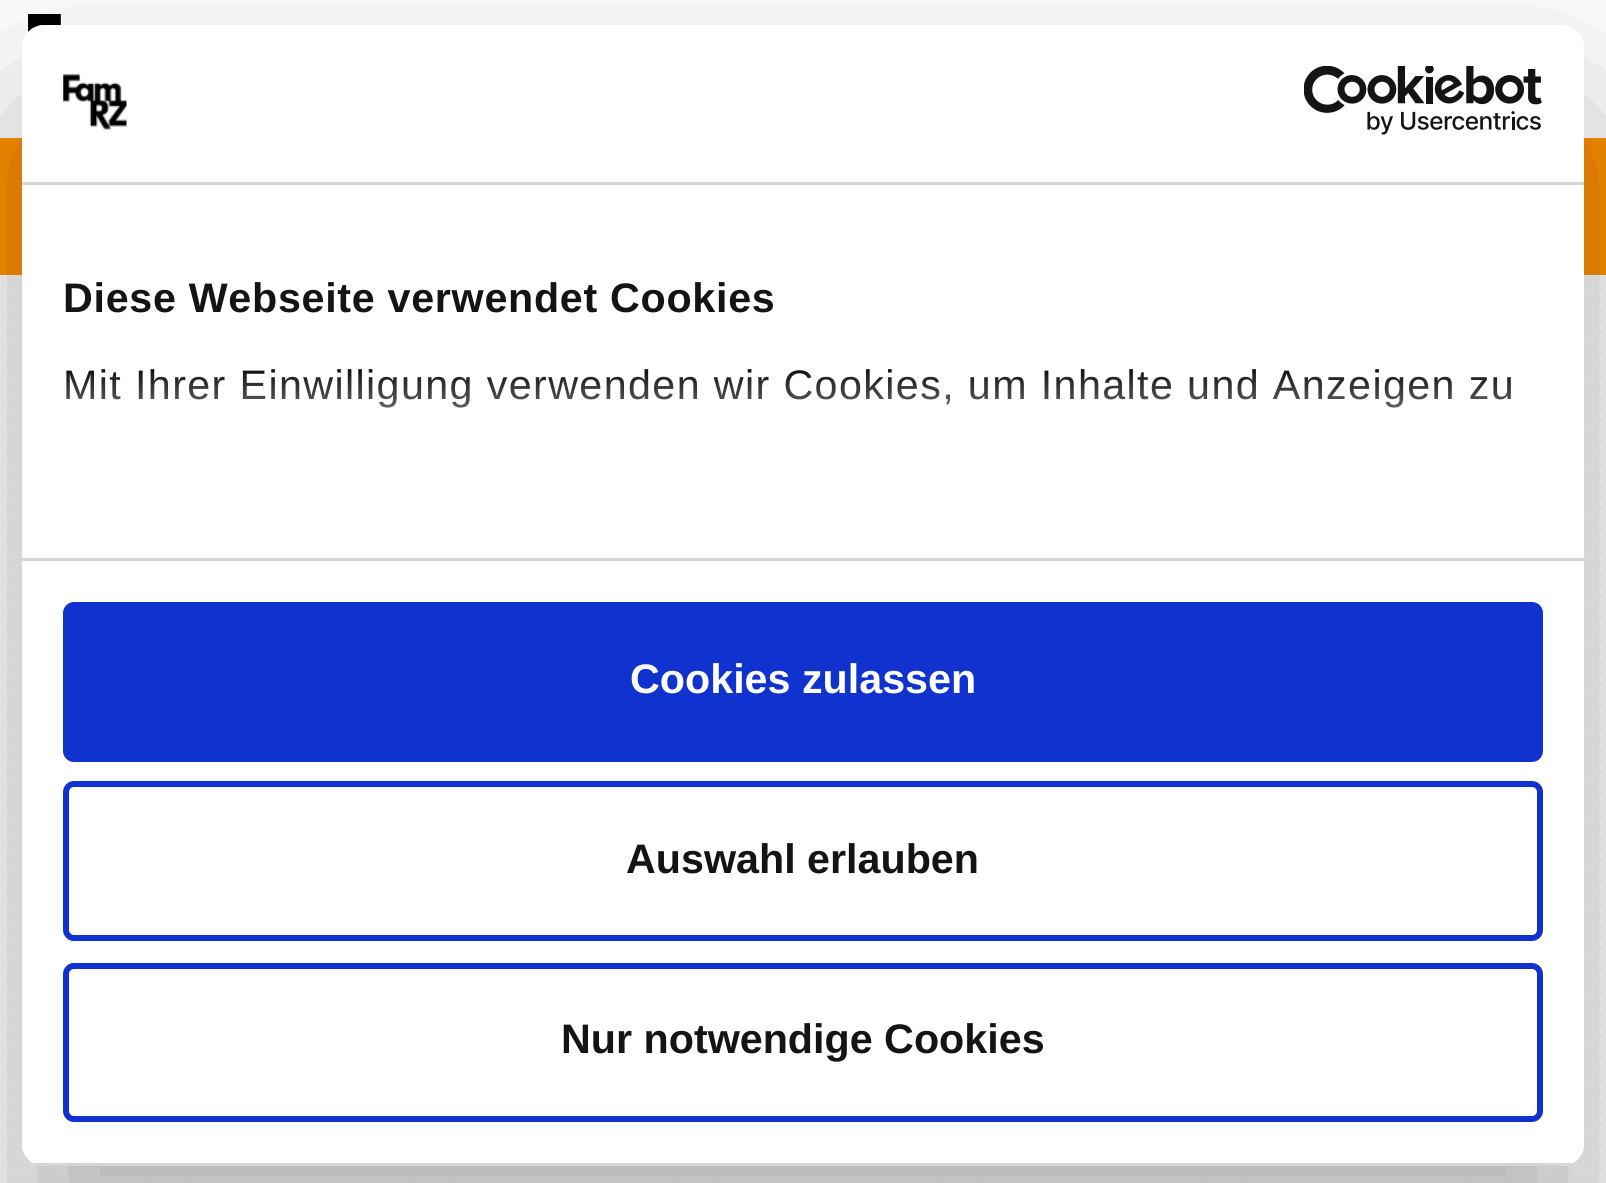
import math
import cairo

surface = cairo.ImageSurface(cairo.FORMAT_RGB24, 1606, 1183)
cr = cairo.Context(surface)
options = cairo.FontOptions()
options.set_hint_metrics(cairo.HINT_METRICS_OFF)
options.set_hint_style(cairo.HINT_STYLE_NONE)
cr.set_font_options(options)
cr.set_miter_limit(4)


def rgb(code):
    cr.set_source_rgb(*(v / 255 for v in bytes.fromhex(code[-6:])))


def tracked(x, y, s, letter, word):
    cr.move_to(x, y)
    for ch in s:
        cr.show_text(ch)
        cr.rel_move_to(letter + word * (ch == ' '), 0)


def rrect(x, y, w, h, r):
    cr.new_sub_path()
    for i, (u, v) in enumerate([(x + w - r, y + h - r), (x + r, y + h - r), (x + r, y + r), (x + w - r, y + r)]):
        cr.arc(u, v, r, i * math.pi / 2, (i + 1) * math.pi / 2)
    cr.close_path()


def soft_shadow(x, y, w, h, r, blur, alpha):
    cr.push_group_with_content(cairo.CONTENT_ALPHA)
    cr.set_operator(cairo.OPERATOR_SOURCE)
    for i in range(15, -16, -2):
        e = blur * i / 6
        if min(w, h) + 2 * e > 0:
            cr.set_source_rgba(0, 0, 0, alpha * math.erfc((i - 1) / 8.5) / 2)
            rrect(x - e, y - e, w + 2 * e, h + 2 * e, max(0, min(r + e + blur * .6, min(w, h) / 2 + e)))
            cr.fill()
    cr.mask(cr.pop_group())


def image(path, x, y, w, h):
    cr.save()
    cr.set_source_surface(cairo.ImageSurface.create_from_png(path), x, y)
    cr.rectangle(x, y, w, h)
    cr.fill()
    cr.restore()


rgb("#ffffff")
cr.paint()
image("img/1.png", 28, 14, 33, 18)
rgb("#fe9000")
cr.rectangle(0, 138, 1606, 137)
cr.fill()
image("img/2.png", 1, 275, 1605, 908)
cr.save()
cr.set_fill_rule(cairo.FILL_RULE_EVEN_ODD)
cr.new_path()
cr.move_to(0, 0)
cr.line_to(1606, 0)
cr.line_to(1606, 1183)
cr.line_to(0, 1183)
cr.close_path()
cr.move_to(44, 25)
cr.line_to(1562, 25)
cr.curve_to(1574, 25, 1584, 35, 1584, 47)
cr.line_to(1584, 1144)
cr.curve_to(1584, 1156, 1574, 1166, 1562, 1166)
cr.line_to(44, 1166)
cr.curve_to(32, 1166, 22, 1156, 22, 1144)
cr.line_to(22, 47)
cr.curve_to(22, 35, 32, 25, 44, 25)
cr.close_path()
cr.clip()
rgb("#000000")
soft_shadow(22, 113, 1562, 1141, 22, 93.5, 0.3)
cr.restore()
rgb("#ffffff")
rrect(22, 25, 1562, 1141, 22)
cr.fill()
rgb("#d6d6d6")
cr.rectangle(22, 182, 1562, 3)
cr.fill()
image("img/3.png", 63, 74, 64, 56)
image("img/4.png", 1304, 66, 238, 69)
cr.rectangle(22, 558, 1562, 3)
cr.fill()
cr.save()
rrect(22, 25, 1562, 1141, 22)
cr.clip()
cr.rectangle(33, 1163, 1540, 3)
cr.fill()
cr.restore()
rgb("#1032cf")
rrect(66, 605, 1474, 154, 8)
cr.fill_preserve()
cr.set_line_width(6)
cr.stroke()
rrect(66, 784, 1474, 154, 8)
cr.stroke()
rrect(66, 966, 1474, 153, 8)
cr.stroke()
cr.select_font_face("Liberation Sans", cairo.FONT_SLANT_NORMAL, cairo.FONT_WEIGHT_BOLD)
cr.set_font_size(41.25)
rgb("#141414")
tracked(63, 312, "Diese Webseite verwendet Cookies", 0.7, 0)
cr.select_font_face("Liberation Sans")
tracked(63, 399, "Mit Ihrer Einwilligung verwenden wir Cookies, um Inhalte und Anzeigen zu", 1.38, 0)
gradient = cairo.LinearGradient(785, 557, 785, 370)
gradient.add_color_stop_rgba(0, 1, 1, 1, 1)
gradient.add_color_stop_rgba(0.5, 1, 1, 1, 0.8)
gradient.add_color_stop_rgba(1, 1, 1, 1, 0)
cr.set_source(gradient)
cr.rectangle(66, 373, 1445, 35)
cr.fill()
cr.select_font_face("Liberation Sans", cairo.FONT_SLANT_NORMAL, cairo.FONT_WEIGHT_BOLD)
rgb("#ffffff")
cr.move_to(630, 693)
cr.show_text("Cookies zulassen")
rgb("#141414")
cr.move_to(626, 873)
cr.show_text("Auswahl erlauben")
cr.move_to(561, 1053)
cr.show_text("Nur notwendige Cookies")
surface.write_to_png("page.png")
